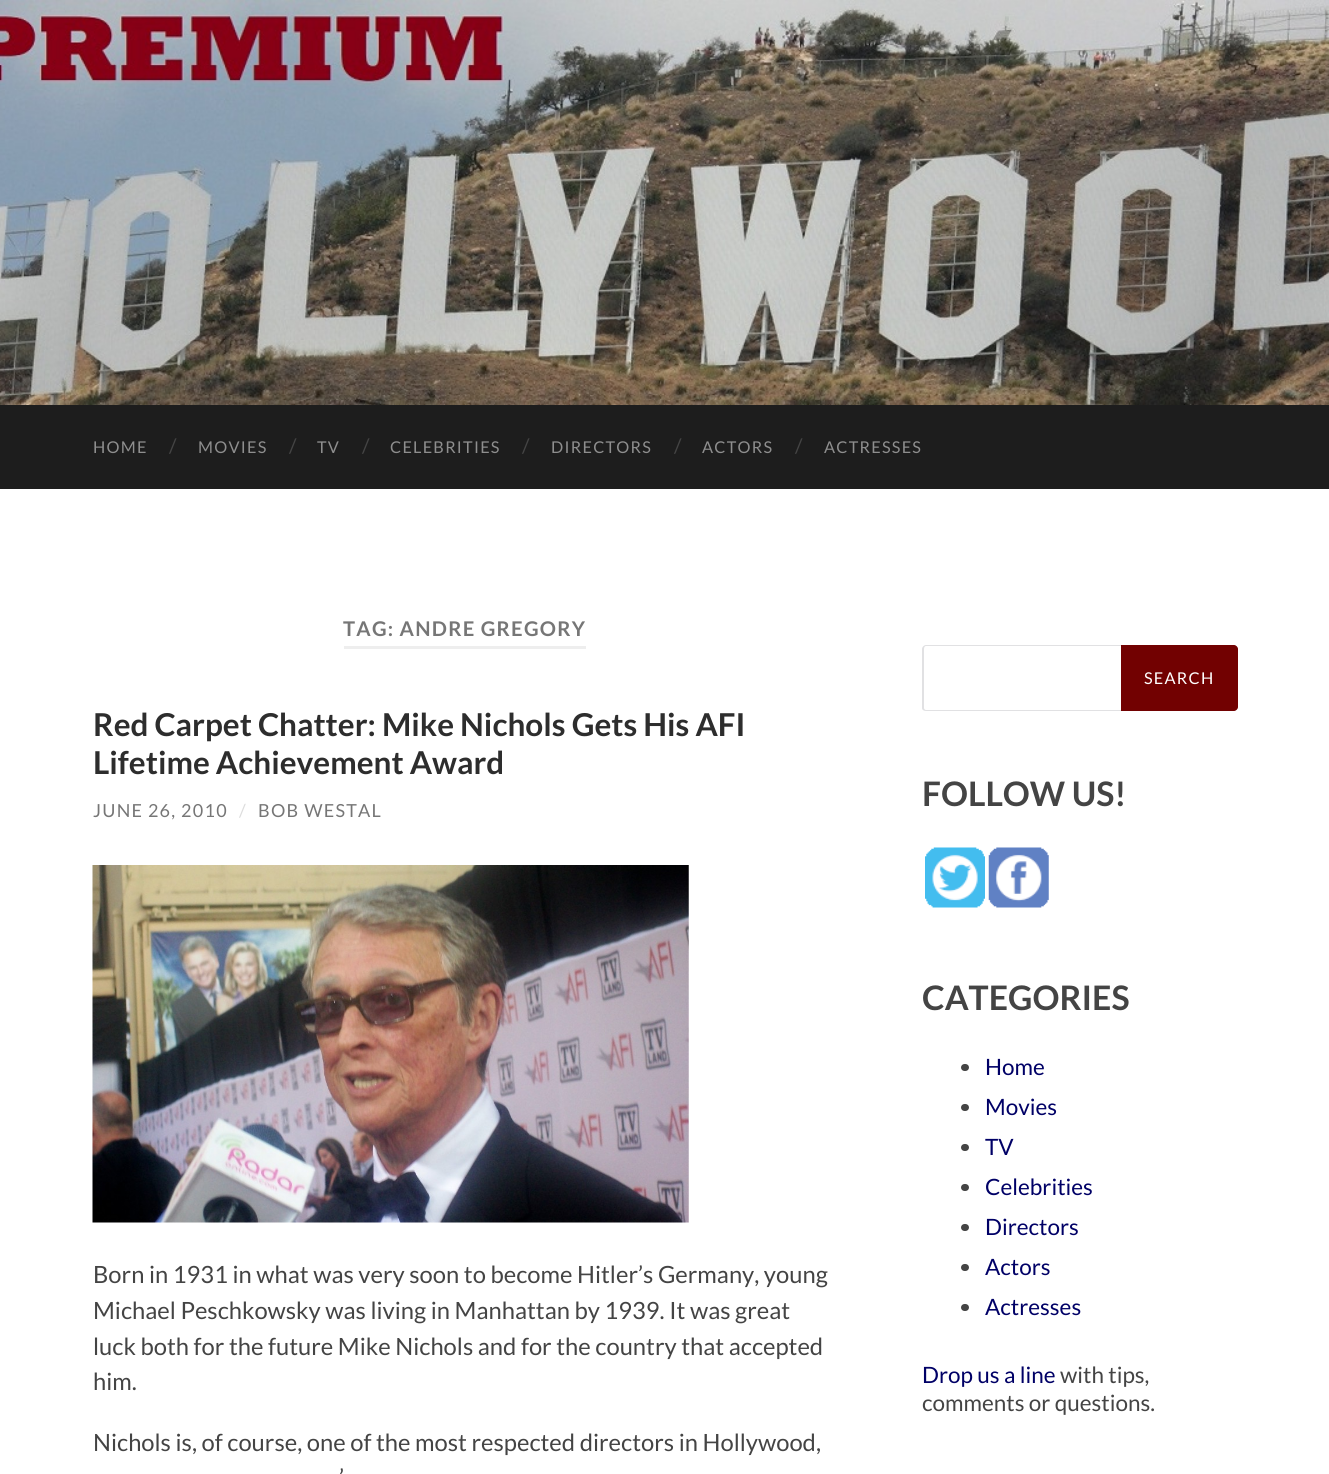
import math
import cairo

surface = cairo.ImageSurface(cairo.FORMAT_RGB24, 1329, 1474)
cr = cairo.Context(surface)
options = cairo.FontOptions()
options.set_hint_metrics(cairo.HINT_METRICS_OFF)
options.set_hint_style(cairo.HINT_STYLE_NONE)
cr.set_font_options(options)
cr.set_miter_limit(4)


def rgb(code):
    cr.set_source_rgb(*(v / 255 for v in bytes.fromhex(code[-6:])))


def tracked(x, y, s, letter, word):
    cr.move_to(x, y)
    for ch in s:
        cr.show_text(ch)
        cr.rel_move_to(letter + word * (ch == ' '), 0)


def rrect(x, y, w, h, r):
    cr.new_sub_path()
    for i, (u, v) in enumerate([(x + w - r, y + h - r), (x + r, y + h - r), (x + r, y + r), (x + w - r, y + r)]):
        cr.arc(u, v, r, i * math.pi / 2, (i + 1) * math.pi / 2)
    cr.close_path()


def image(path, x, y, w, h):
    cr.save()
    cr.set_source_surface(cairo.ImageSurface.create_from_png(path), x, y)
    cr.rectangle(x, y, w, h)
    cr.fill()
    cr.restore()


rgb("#ffffff")
cr.paint()
image("img/1.png", 0, 0, 1329, 405)
rgb("#1d1d1d")
cr.rectangle(0, 405, 1329, 84)
cr.fill()
rgb("#eeeeee")
cr.rectangle(344, 646, 242, 3)
cr.fill()
image("img/2.png", 92, 865, 597, 358)
rgb("#e1e1e3")
cr.set_fill_rule(cairo.FILL_RULE_EVEN_ODD)
cr.new_path()
cr.move_to(926, 645)
cr.line_to(1121, 645)
cr.line_to(1121, 711)
cr.line_to(926, 711)
cr.curve_to(924, 711, 922, 710, 922, 708)
cr.line_to(922, 649)
cr.curve_to(922, 647, 924, 645, 926, 645)
cr.close_path()
cr.move_to(926, 646)
cr.line_to(1121, 646)
cr.line_to(1121, 710)
cr.line_to(926, 710)
cr.curve_to(925, 710, 924, 709, 924, 708)
cr.line_to(924, 649)
cr.curve_to(924, 647, 925, 646, 926, 646)
cr.close_path()
cr.fill()
rgb("#720101")
cr.new_path()
cr.move_to(1121, 645)
cr.line_to(1234, 645)
cr.curve_to(1236, 645, 1238, 647, 1238, 649)
cr.line_to(1238, 707)
cr.curve_to(1238, 709, 1236, 711, 1234, 711)
cr.line_to(1121, 711)
cr.close_path()
cr.fill()
image("img/3.png", 925, 847, 60, 61)
image("img/4.png", 988, 847, 61, 61)
rgb("#444444")
rrect(961, 1064, 8, 7, 3.5)
cr.fill()
rrect(961, 1104, 8, 7, 3.5)
cr.fill()
rrect(961, 1144, 8, 7, 3.5)
cr.fill()
rrect(961, 1184, 8, 7, 3.5)
cr.fill()
rrect(961, 1224, 8, 7, 3.5)
cr.fill()
rrect(961, 1264, 8, 7, 3.5)
cr.fill()
rrect(961, 1304, 8, 7, 3.5)
cr.fill()
cr.select_font_face("Lato")
cr.set_font_size(16.25)
rgb("#8e8e8e")
tracked(93, 453, "HOME", 1.25, 0)
cr.set_font_size(20)
rgb("#444444")
cr.move_to(169, 453)
cr.show_text("/")
cr.set_font_size(16.25)
rgb("#8e8e8e")
tracked(198, 453, "MOVIES", 1.25, 0)
cr.set_font_size(20)
rgb("#444444")
cr.move_to(289, 453)
cr.show_text("/")
cr.set_font_size(16.25)
rgb("#8e8e8e")
tracked(317, 453, "TV", 1.25, 0)
cr.set_font_size(20)
rgb("#444444")
cr.move_to(362, 453)
cr.show_text("/")
cr.set_font_size(16.25)
rgb("#8e8e8e")
tracked(390, 453, "CELEBRITIES", 1.25, 0)
cr.set_font_size(20)
rgb("#444444")
cr.move_to(522, 453)
cr.show_text("/")
cr.set_font_size(16.25)
rgb("#8e8e8e")
tracked(551, 453, "DIRECTORS", 1.25, 0)
cr.set_font_size(20)
rgb("#444444")
cr.move_to(674, 453)
cr.show_text("/")
cr.set_font_size(16.25)
rgb("#8e8e8e")
tracked(702, 453, "ACTORS", 1.25, 0)
cr.set_font_size(20)
rgb("#444444")
cr.move_to(795, 453)
cr.show_text("/")
cr.set_font_size(16.25)
rgb("#8e8e8e")
tracked(824, 453, "ACTRESSES", 1.25, 0)
cr.select_font_face("Lato", cairo.FONT_SLANT_NORMAL, cairo.FONT_WEIGHT_BOLD)
cr.set_font_size(20.25)
rgb("#767676")
tracked(343, 636, "TAG: ANDRE GREGORY", 1.25, 0)
cr.set_font_size(31.5)
rgb("#2d2d2d")
cr.move_to(93, 736)
cr.show_text("Red Carpet Chatter: Mike Nichols Gets His AFI")
cr.move_to(93, 774)
cr.show_text("Lifetime Achievement Award")
cr.select_font_face("Lato")
cr.set_font_size(18)
rgb("#767676")
tracked(93, 817, "JUNE 26, 2010", 1.25, 0)
rgb("#dddddd")
tracked(239, 817, "/", 1.25, 0)
rgb("#767676")
tracked(258, 817, "BOB WESTAL", 1.25, 0)
cr.set_font_size(23.75)
rgb("#444444")
for x, y, s in [
    (93, 1283, "Born in 1931 in what was very soon to become Hitler’s Germany, young"),
    (93, 1319, "Michael Peschkowsky was living in Manhattan by 1939. It was great"),
    (93, 1355, "luck both for the future Mike Nichols and for the country that accepted"),
    (93, 1390, "him."),
    (93, 1451, "Nichols is, of course, one of the most respected directors in Hollywood,"),
    (339, 1486, "’"),
]:
    cr.move_to(x, y)
    cr.show_text(s)
cr.set_font_size(16.25)
rgb("#ffffff")
tracked(1144, 684, "SEARCH", 1.25, 0)
cr.select_font_face("Lato", cairo.FONT_SLANT_NORMAL, cairo.FONT_WEIGHT_BOLD)
cr.set_font_size(33.75)
rgb("#444444")
cr.move_to(922, 806)
cr.show_text("FOLLOW US!")
cr.move_to(922, 1010)
cr.show_text("CATEGORIES")
cr.select_font_face("Lato")
cr.set_font_size(22.5)
rgb("#000066")
for x, y, s in [
    (985, 1075, "Home"),
    (985, 1115, "Movies"),
    (985, 1155, "TV"),
    (985, 1195, "Celebrities"),
    (985, 1235, "Directors"),
    (985, 1275, "Actors"),
    (985, 1315, "Actresses"),
    (922, 1383, "Drop us a line"),
]:
    cr.move_to(x, y)
    cr.show_text(s)
rgb("#444444")
cr.move_to(1060, 1383)
cr.show_text("with tips,")
cr.move_to(922, 1411)
cr.show_text("comments or questions.")
surface.write_to_png("page.png")
